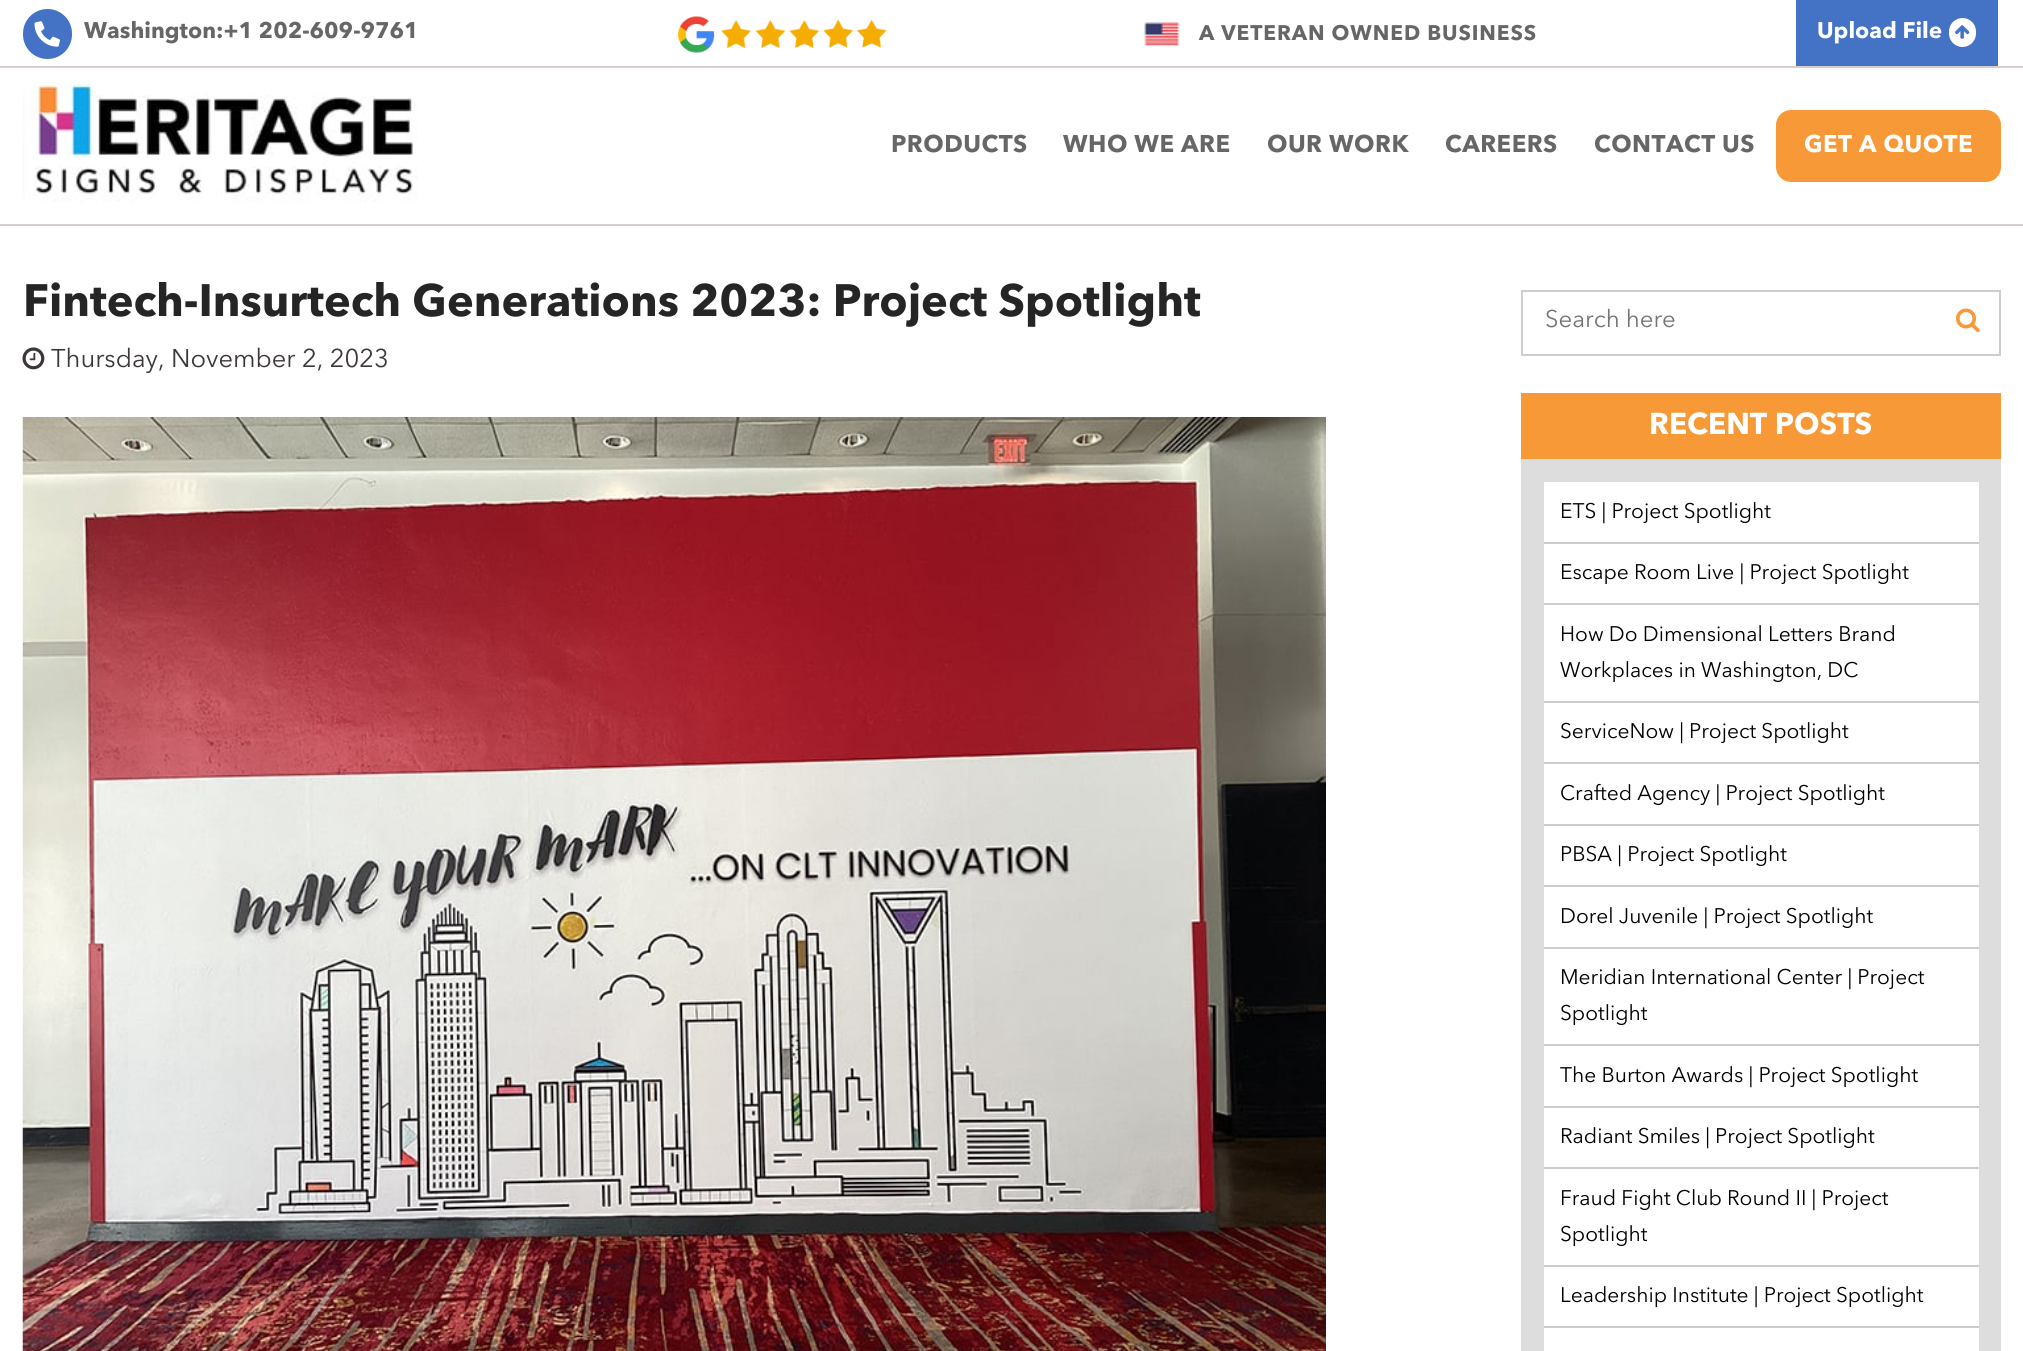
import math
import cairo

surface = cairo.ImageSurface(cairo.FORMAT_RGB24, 2023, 1351)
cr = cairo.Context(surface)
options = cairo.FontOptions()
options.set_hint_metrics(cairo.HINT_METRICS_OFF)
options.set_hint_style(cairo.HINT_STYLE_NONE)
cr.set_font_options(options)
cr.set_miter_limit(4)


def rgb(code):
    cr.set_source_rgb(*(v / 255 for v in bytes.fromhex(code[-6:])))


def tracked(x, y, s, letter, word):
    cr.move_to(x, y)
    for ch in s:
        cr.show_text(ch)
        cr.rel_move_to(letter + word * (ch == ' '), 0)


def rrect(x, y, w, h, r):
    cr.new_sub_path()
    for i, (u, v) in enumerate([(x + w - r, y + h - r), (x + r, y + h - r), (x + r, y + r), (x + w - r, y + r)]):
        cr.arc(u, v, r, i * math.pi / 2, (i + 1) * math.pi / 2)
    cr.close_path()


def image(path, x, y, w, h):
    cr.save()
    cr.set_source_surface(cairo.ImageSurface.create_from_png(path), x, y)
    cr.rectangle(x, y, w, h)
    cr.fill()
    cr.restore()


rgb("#ffffff")
cr.paint()
rgb("#d6cdcd")
cr.rectangle(0, 66, 2023, 2)
cr.fill()
rgb("#4472c4")
rrect(23, 9, 49, 50, 24.5)
cr.fill()
image("img/1.png", 34, 21, 26, 26)
image("img/2.png", 678, 16, 209, 37)
image("img/3.png", 1144, 22, 36, 25)
cr.rectangle(1796, 0, 202, 66)
cr.fill()
rgb("#ffffff")
rrect(1949, 18, 27, 29, 13.5)
cr.fill()
image("img/4.png", 1955, 25, 15, 14)
rgb("#d6cdcd")
cr.rectangle(0, 224, 2023, 2)
cr.fill()
image("img/5.png", 22, 82, 396, 121)
rgb("#f89938")
rrect(1776, 110, 225, 72, 15)
cr.fill()
image("img/6.png", 22, 347, 23, 23)
image("img/7.png", 22, 417, 1304, 934)
cr.rectangle(1522, 291, 478, 64)
rgb("#cccccc")
cr.stroke()
image("img/8.png", 1956, 308, 24, 25)
for x, y, w, h, color in [
    (1521, 393, 480, 66, "#f89938"),
    (1521, 459, 480, 892, "#dddddd"),
    (1544, 482, 435, 869, "#ffffff"),
    (1544, 542, 435, 2, "#cccccc"),
    (1544, 603, 435, 2, "#cccccc"),
    (1544, 701, 435, 2, "#cccccc"),
    (1544, 762, 435, 2, "#cccccc"),
    (1544, 824, 435, 2, "#cccccc"),
    (1544, 885, 435, 2, "#cccccc"),
    (1544, 947, 435, 2, "#cccccc"),
    (1544, 1044, 435, 2, "#cccccc"),
    (1544, 1106, 435, 2, "#cccccc"),
    (1544, 1167, 435, 2, "#cccccc"),
    (1544, 1265, 435, 2, "#cccccc"),
    (1544, 1326, 435, 2, "#cccccc"),
]:
    rgb(color)
    cr.rectangle(x, y, w, h)
    cr.fill()
cr.select_font_face("Avenir Next", cairo.FONT_SLANT_NORMAL, cairo.FONT_WEIGHT_BOLD)
cr.set_font_size(22.5)
rgb("#666666")
cr.move_to(84, 38)
cr.show_text("Washington:+1 202-609-9761")
cr.set_font_size(21)
tracked(1199, 40, "A VETERAN OWNED BUSINESS", 0.9, 0)
cr.set_font_size(22.5)
rgb("#ffffff")
cr.move_to(1817, 38)
cr.show_text("Upload File")
cr.set_font_size(24)
rgb("#666666")
for x, y, s in [
    (891, 152, "PRODUCTS"),
    (1063, 152, "WHO WE ARE"),
    (1267, 152, "OUR WORK"),
    (1445, 152, "CAREERS"),
    (1594, 152, "CONTACT US"),
]:
    tracked(x, y, s, 0.5, 0)
rgb("#ffffff")
tracked(1804, 152, "GET A QUOTE", 0.5, 0)
cr.set_font_size(45)
rgb("#252525")
cr.move_to(23, 316)
cr.show_text("Fintech-Insurtech Generations 2023: Project Spotlight")
cr.select_font_face("Avenir Next")
cr.set_font_size(25.5)
rgb("#3d3838")
cr.move_to(51, 367)
cr.show_text("Thursday, November 2, 2023")
cr.set_font_size(24)
rgb("#757575")
cr.move_to(1545, 327)
cr.show_text("Search here")
cr.select_font_face("Avenir Next", cairo.FONT_SLANT_NORMAL, cairo.FONT_WEIGHT_BOLD)
cr.set_font_size(30)
rgb("#ffffff")
cr.move_to(1649, 434)
cr.show_text("RECENT POSTS")
cr.select_font_face("Avenir Next")
cr.set_font_size(21)
rgb("#000000")
for x, y, s in [
    (1560, 518, "ETS | Project Spotlight"),
    (1560, 579, "Escape Room Live | Project Spotlight"),
    (1560, 641, "How Do Dimensional Letters Brand"),
    (1560, 677, "Workplaces in Washington, DC"),
    (1560, 738, "ServiceNow | Project Spotlight"),
    (1560, 800, "Crafted Agency | Project Spotlight"),
    (1560, 861, "PBSA | Project Spotlight"),
    (1560, 923, "Dorel Juvenile | Project Spotlight"),
    (1560, 984, "Meridian International Center | Project"),
    (1560, 1020, "Spotlight"),
    (1560, 1082, "The Burton Awards | Project Spotlight"),
    (1560, 1143, "Radiant Smiles | Project Spotlight"),
    (1560, 1205, "Fraud Fight Club Round II | Project"),
    (1560, 1241, "Spotlight"),
    (1560, 1302, "Leadership Institute | Project Spotlight"),
]:
    cr.move_to(x, y)
    cr.show_text(s)
surface.write_to_png("page.png")
